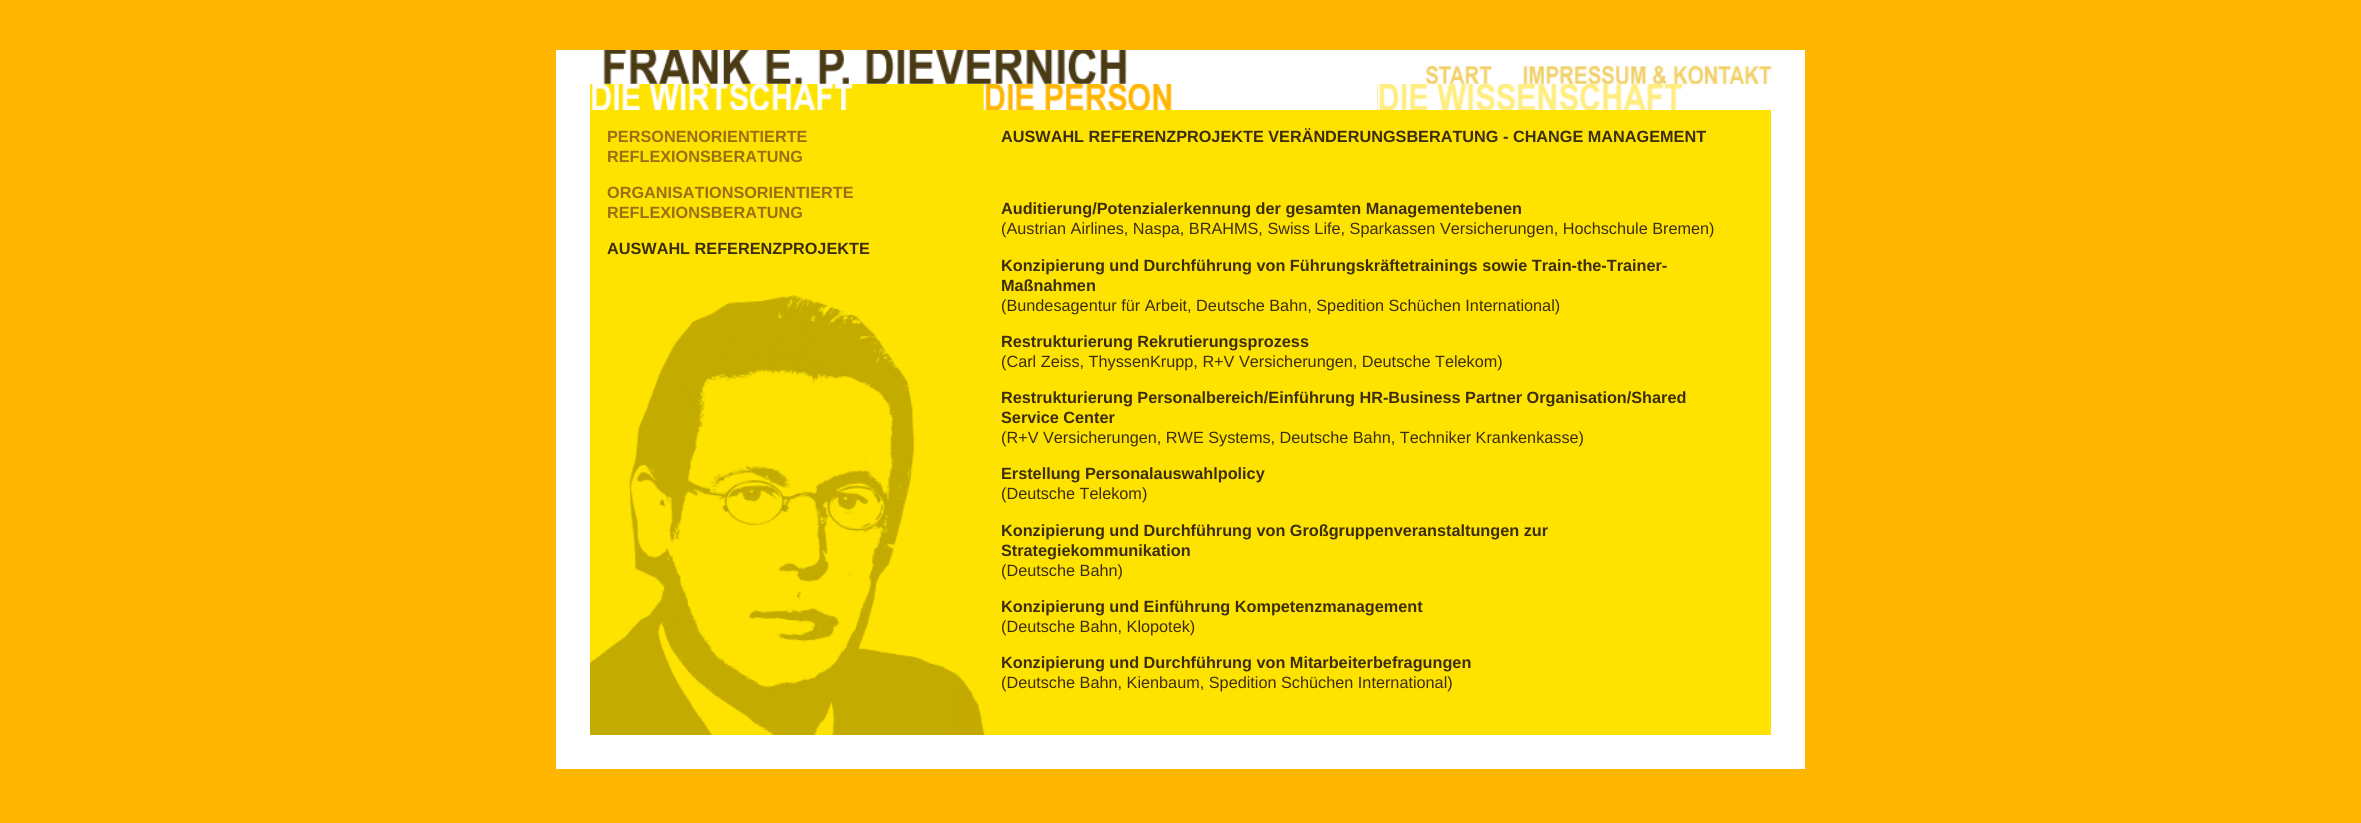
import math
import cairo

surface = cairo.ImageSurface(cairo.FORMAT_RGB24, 2361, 823)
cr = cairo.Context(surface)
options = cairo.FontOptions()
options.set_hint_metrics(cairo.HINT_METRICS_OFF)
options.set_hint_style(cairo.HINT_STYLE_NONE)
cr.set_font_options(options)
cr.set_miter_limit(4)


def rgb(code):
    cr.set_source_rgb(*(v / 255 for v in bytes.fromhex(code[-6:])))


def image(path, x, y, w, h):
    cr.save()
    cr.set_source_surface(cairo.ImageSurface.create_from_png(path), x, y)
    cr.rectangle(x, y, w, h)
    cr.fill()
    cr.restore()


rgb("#ffb600")
cr.paint()
for x, y, w, h, color in [
    (1771, 50, 34, 685, "#ffffff"),
    (590, 735, 1215, 34, "#ffffff"),
    (556, 50, 34, 719, "#ffffff"),
    (590, 50, 1181, 34, "#ffffff"),
]:
    rgb(color)
    cr.rectangle(x, y, w, h)
    cr.fill()
image("img/1.png", 603, 50, 524, 34)
image("img/2.png", 1425, 65, 67, 19)
image("img/3.png", 1523, 65, 249, 19)
rgb("#ffe300")
cr.rectangle(590, 84, 394, 26)
cr.fill()
image("img/4.png", 591, 84, 262, 26)
image("img/5.png", 983, 84, 395, 26)
image("img/6.png", 1377, 84, 394, 26)
cr.rectangle(590, 110, 1181, 625)
cr.fill()
image("img/7.png", 590, 295, 395, 440)
cr.select_font_face("Liberation Sans", cairo.FONT_SLANT_NORMAL, cairo.FONT_WEIGHT_BOLD)
cr.set_font_size(16.25)
rgb("#9a6f14")
for x, y, s in [
    (607, 142, "PERSONENORIENTIERTE"),
    (607, 162, "REFLEXIONSBERATUNG"),
    (607, 198, "ORGANISATIONSORIENTIERTE"),
    (607, 218, "REFLEXIONSBERATUNG"),
]:
    cr.move_to(x, y)
    cr.show_text(s)
rgb("#3c2d0f")
for x, y, s in [
    (607, 254, "AUSWAHL REFERENZPROJEKTE"),
    (1001, 142, "AUSWAHL REFERENZPROJEKTE VERÄNDERUNGSBERATUNG - CHANGE MANAGEMENT"),
    (1001, 214, "Auditierung/Potenzialerkennung der gesamten Managementebenen"),
]:
    cr.move_to(x, y)
    cr.show_text(s)
cr.select_font_face("Liberation Sans")
cr.move_to(1001, 234)
cr.show_text("(Austrian Airlines, Naspa, BRAHMS, Swiss Life, Sparkassen Versicherungen, Hochschule Bremen)")
cr.select_font_face("Liberation Sans", cairo.FONT_SLANT_NORMAL, cairo.FONT_WEIGHT_BOLD)
cr.move_to(1001, 271)
cr.show_text("Konzipierung und Durchführung von Führungskräftetrainings sowie Train-the-Trainer-")
cr.move_to(1001, 291)
cr.show_text("Maßnahmen")
cr.select_font_face("Liberation Sans")
cr.move_to(1001, 311)
cr.show_text("(Bundesagentur für Arbeit, Deutsche Bahn, Spedition Schüchen International)")
cr.select_font_face("Liberation Sans", cairo.FONT_SLANT_NORMAL, cairo.FONT_WEIGHT_BOLD)
cr.move_to(1001, 347)
cr.show_text("Restrukturierung Rekrutierungsprozess")
cr.select_font_face("Liberation Sans")
cr.move_to(1001, 367)
cr.show_text("(Carl Zeiss, ThyssenKrupp, R+V Versicherungen, Deutsche Telekom)")
cr.select_font_face("Liberation Sans", cairo.FONT_SLANT_NORMAL, cairo.FONT_WEIGHT_BOLD)
cr.move_to(1001, 403)
cr.show_text("Restrukturierung Personalbereich/Einführung HR-Business Partner Organisation/Shared")
cr.move_to(1001, 423)
cr.show_text("Service Center")
cr.select_font_face("Liberation Sans")
cr.move_to(1001, 443)
cr.show_text("(R+V Versicherungen, RWE Systems, Deutsche Bahn, Techniker Krankenkasse)")
cr.select_font_face("Liberation Sans", cairo.FONT_SLANT_NORMAL, cairo.FONT_WEIGHT_BOLD)
cr.move_to(1001, 479)
cr.show_text("Erstellung Personalauswahlpolicy")
cr.select_font_face("Liberation Sans")
cr.move_to(1001, 499)
cr.show_text("(Deutsche Telekom)")
cr.select_font_face("Liberation Sans", cairo.FONT_SLANT_NORMAL, cairo.FONT_WEIGHT_BOLD)
cr.move_to(1001, 536)
cr.show_text("Konzipierung und Durchführung von Großgruppenveranstaltungen zur")
cr.move_to(1001, 556)
cr.show_text("Strategiekommunikation")
cr.select_font_face("Liberation Sans")
cr.move_to(1001, 576)
cr.show_text("(Deutsche Bahn)")
cr.select_font_face("Liberation Sans", cairo.FONT_SLANT_NORMAL, cairo.FONT_WEIGHT_BOLD)
cr.move_to(1001, 612)
cr.show_text("Konzipierung und Einführung Kompetenzmanagement")
cr.select_font_face("Liberation Sans")
cr.move_to(1001, 632)
cr.show_text("(Deutsche Bahn, Klopotek)")
cr.select_font_face("Liberation Sans", cairo.FONT_SLANT_NORMAL, cairo.FONT_WEIGHT_BOLD)
cr.move_to(1001, 668)
cr.show_text("Konzipierung und Durchführung von Mitarbeiterbefragungen")
cr.select_font_face("Liberation Sans")
cr.move_to(1001, 688)
cr.show_text("(Deutsche Bahn, Kienbaum, Spedition Schüchen International)")
surface.write_to_png("page.png")
